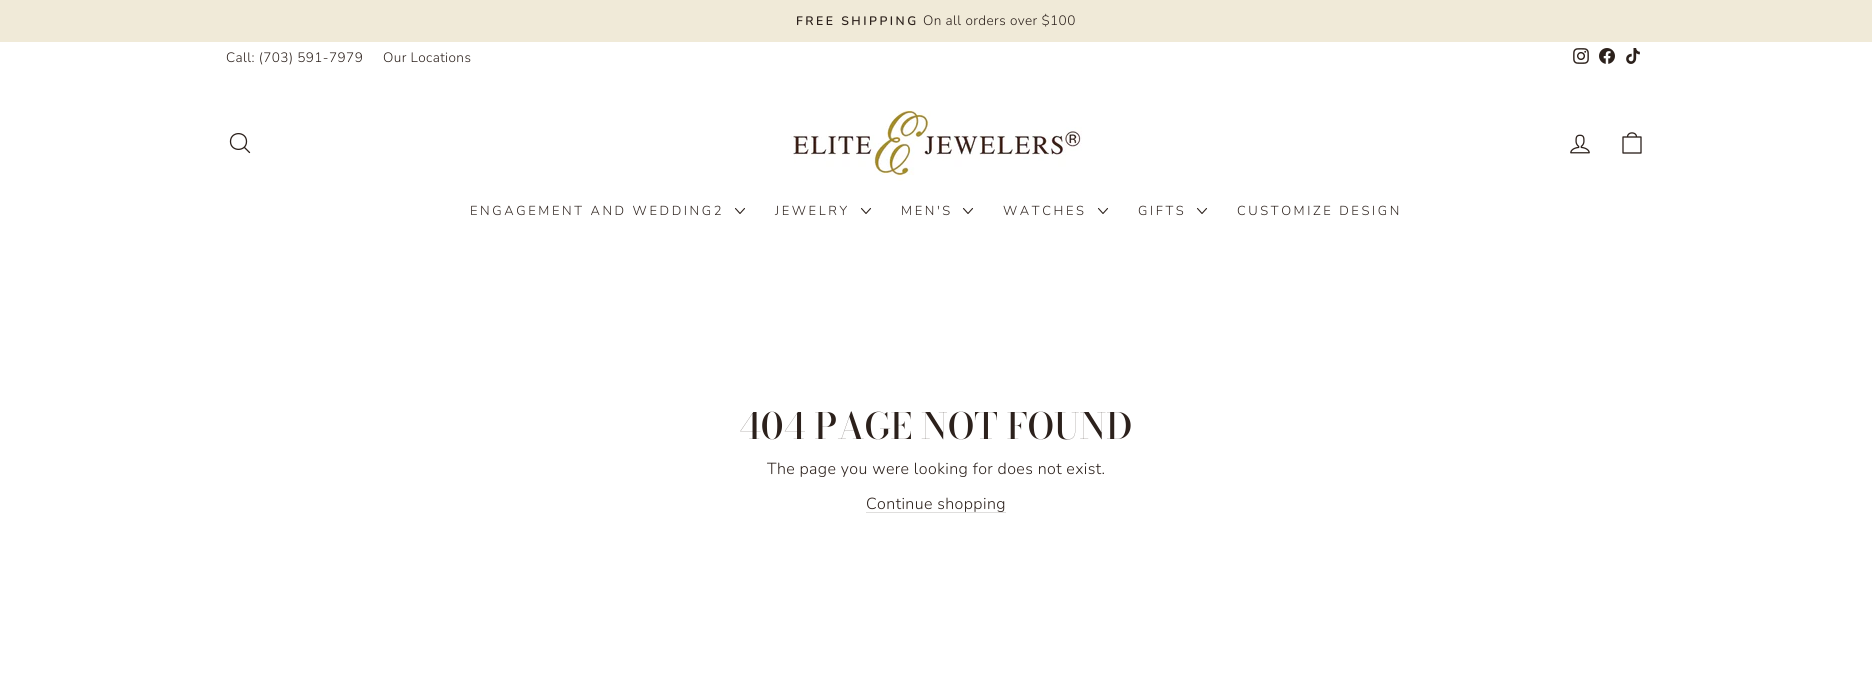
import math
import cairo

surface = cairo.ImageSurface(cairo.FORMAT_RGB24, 1872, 698)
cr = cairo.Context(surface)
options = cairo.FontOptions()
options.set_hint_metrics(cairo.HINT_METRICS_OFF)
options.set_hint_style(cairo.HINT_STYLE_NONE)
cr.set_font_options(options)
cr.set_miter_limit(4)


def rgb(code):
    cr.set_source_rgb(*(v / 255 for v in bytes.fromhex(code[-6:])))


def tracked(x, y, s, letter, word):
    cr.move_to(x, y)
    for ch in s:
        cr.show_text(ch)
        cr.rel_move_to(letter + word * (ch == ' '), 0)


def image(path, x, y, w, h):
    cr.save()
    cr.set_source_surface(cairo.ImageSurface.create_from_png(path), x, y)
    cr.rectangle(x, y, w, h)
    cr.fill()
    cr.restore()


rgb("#ffffff")
cr.paint()
rgb("#f0ead8")
cr.rectangle(0, 0, 1872, 42)
cr.fill()
image("img/1.png", 1573, 48, 16, 16)
image("img/2.png", 1599, 48, 16, 16)
image("img/3.png", 1626, 48, 14, 16)
cr.new_path()
cr.move_to(246.5, 141.5)
cr.curve_to(246.5, 152, 230.5, 152, 230.5, 141.5)
cr.curve_to(230.5, 131, 246.5, 131, 246.5, 141.5)
cr.close_path()
cr.move_to(249.5, 152.5)
cr.line_to(244.5, 147.5)
rgb("#2c211c")
cr.set_line_width(1.3)
cr.set_line_cap(cairo.LINE_CAP_ROUND)
cr.set_line_join(cairo.LINE_JOIN_ROUND)
cr.stroke()
image("img/4.png", 790, 110, 292, 71)
image("img/5.png", 1570, 134, 20, 20)
cr.new_path()
cr.move_to(1623, 137)
cr.line_to(1641, 137)
cr.line_to(1641, 153)
cr.line_to(1623, 153)
cr.close_path()
cr.move_to(1627.5, 137)
cr.curve_to(1627.5, 131.5, 1636.5, 131.5, 1636.5, 137)
cr.stroke()
cr.new_path()
cr.move_to(735.5, 208.5)
cr.line_to(740, 213.5)
cr.line_to(744.5, 208.5)
cr.set_line_width(1.1)
cr.stroke()
cr.new_path()
cr.move_to(861.5, 208.5)
cr.line_to(866, 213.5)
cr.line_to(870.5, 208.5)
cr.stroke()
cr.new_path()
cr.move_to(963.5, 208.5)
cr.line_to(968, 213.5)
cr.line_to(972.5, 208.5)
cr.stroke()
cr.new_path()
cr.move_to(1098.5, 208.5)
cr.line_to(1103, 213.5)
cr.line_to(1107.5, 208.5)
cr.stroke()
cr.new_path()
cr.move_to(1197.5, 208.5)
cr.line_to(1202, 213.5)
cr.line_to(1206.5, 208.5)
cr.stroke()
rgb("#dfdedd")
cr.rectangle(866, 512, 140, 1)
cr.fill()
cr.select_font_face("Nunito SemiBold")
cr.set_font_size(12.25)
rgb("#2c211c")
tracked(796, 25, "FREE SHIPPING", 2.5, 0)
cr.select_font_face("Nunito Light")
cr.set_font_size(13.6)
for x, y, s in [
    (923, 25, "On all orders over $100"),
    (226, 62, "Call: (703) 591-7979"),
    (383, 62, "Our Locations"),
]:
    tracked(x, y, s, 0.4, 0)
cr.set_font_size(13)
for x, y, s in [
    (470, 215, "ENGAGEMENT AND WEDDING2"),
    (775, 215, "JEWELRY"),
    (901, 215, "MEN'S"),
    (1003, 215, "WATCHES"),
    (1138, 215, "GIFTS"),
    (1237, 215, "CUSTOMIZE DESIGN"),
]:
    tracked(x, y, s, 2.6, 0)
cr.select_font_face("Bodoni Moda Medium")
cr.set_font_size(36)
cr.move_to(739, 439)
cr.show_text("404 PAGE NOT FOUND")
cr.select_font_face("Nunito Light")
cr.set_font_size(16)
tracked(767, 474, "The page you were looking for does not exist.", 0.4, 0)
tracked(866, 509, "Continue shopping", 0.4, 0)
surface.write_to_png("page.png")
